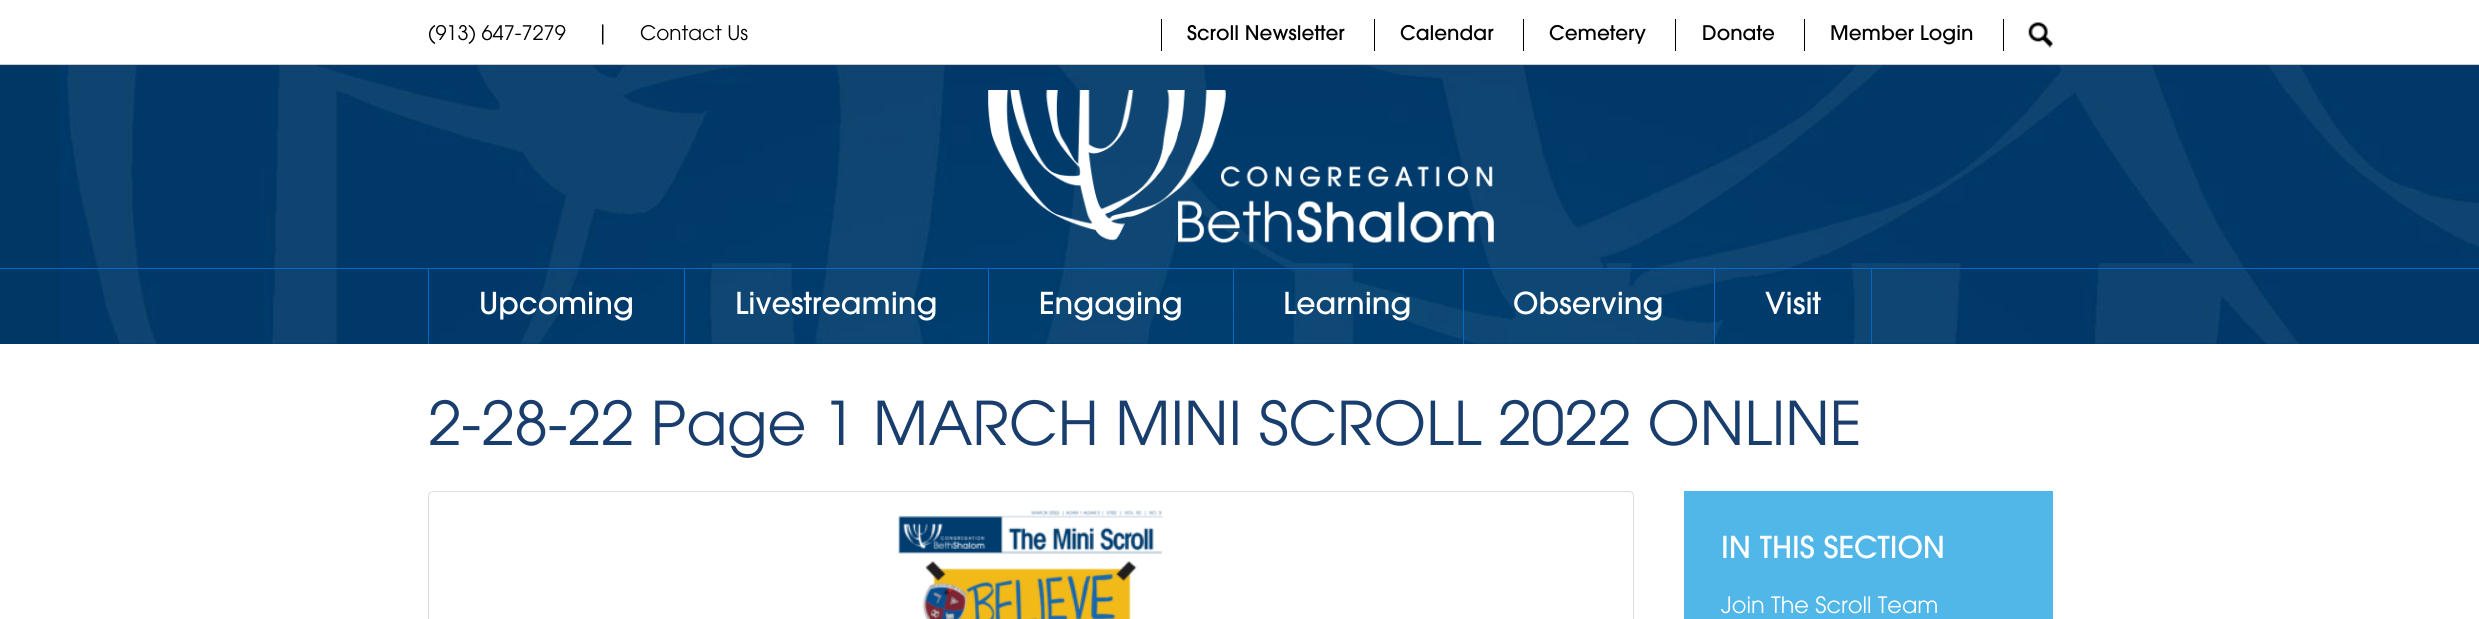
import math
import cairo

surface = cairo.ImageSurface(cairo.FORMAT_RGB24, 2479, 619)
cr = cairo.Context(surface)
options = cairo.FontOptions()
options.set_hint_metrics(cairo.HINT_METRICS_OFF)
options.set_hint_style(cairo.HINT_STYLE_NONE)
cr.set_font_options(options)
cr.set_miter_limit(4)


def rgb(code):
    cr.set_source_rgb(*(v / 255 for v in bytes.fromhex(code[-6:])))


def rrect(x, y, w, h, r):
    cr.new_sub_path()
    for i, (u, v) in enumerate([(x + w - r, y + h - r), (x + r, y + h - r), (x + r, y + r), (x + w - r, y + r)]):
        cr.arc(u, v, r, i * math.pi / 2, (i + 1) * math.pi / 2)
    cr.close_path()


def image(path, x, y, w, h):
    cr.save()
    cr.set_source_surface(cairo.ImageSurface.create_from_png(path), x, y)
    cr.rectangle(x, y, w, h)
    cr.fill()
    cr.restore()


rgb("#003865")
cr.paint()
for x, y, w, h, color in [
    (0, 0, 2479, 64, "#ffffff"),
    (0, 64, 2479, 1, "#cccccc"),
    (1161, 19, 1, 32, "#000000"),
    (1374, 19, 1, 32, "#000000"),
    (1523, 19, 1, 32, "#000000"),
    (1675, 19, 1, 32, "#000000"),
    (1804, 19, 1, 32, "#000000"),
    (2003, 19, 1, 32, "#000000"),
]:
    rgb(color)
    cr.rectangle(x, y, w, h)
    cr.fill()
image("img/1.png", 2028, 22, 25, 26)
image("img/2.png", 60, 65, 2419, 279)
image("img/3.png", 988, 90, 506, 153)
for x, y, w, h, color in [
    (0, 268, 2479, 1, "#0069c5"),
    (428, 269, 1, 75, "#0069c5"),
    (684, 269, 1, 75, "#0069c5"),
    (988, 269, 1, 75, "#0069c5"),
    (1233, 269, 1, 75, "#0069c5"),
    (1463, 269, 1, 75, "#0069c5"),
    (1714, 269, 1, 75, "#0069c5"),
    (1871, 269, 1, 75, "#0069c5"),
    (0, 344, 2479, 275, "#ffffff"),
]:
    rgb(color)
    cr.rectangle(x, y, w, h)
    cr.fill()
rrect(428.5, 491.5, 1205, 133, 4.5)
rgb("#dddddd")
cr.set_line_width(1)
cr.stroke()
image("img/4.png", 897, 510, 266, 109)
rgb("#50b7e8")
cr.rectangle(1684, 491, 369, 128)
cr.fill()
cr.select_font_face("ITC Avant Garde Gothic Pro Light")
cr.set_font_size(20)
rgb("#000000")
for x, y, s in [
    (428, 40, "(913) 647-7279"),
    (596, 40, "|"),
    (640, 40, "Contact Us"),
]:
    cr.move_to(x, y)
    cr.show_text(s)
cr.select_font_face("ITC Avant Garde Gothic Pro Medium")
for x, y, s in [
    (1187, 40, "Scroll Newsletter"),
    (1400, 40, "Calendar"),
    (1549, 40, "Cemetery"),
    (1702, 40, "Donate"),
    (1830, 40, "Member Login"),
]:
    cr.move_to(x, y)
    cr.show_text(s)
cr.set_font_size(30)
rgb("#ffffff")
for x, y, s in [
    (479, 314, "Upcoming"),
    (735, 314, "Livestreaming"),
    (1039, 314, "Engaging"),
    (1283, 314, "Learning"),
    (1513, 314, "Observing"),
    (1765, 314, "Visit"),
]:
    cr.move_to(x, y)
    cr.show_text(s)
cr.select_font_face("ITC Avant Garde Gothic Pro Light")
cr.set_font_size(60)
rgb("#193e6d")
cr.move_to(428, 445)
cr.show_text("2-28-22 Page 1 MARCH MINI SCROLL 2022 ONLINE")
cr.select_font_face("ITC Avant Garde Gothic Pro Medium")
cr.set_font_size(30)
rgb("#ffffff")
cr.move_to(1721, 558)
cr.show_text("IN THIS SECTION")
cr.select_font_face("ITC Avant Garde Gothic Pro Light")
cr.set_font_size(22.5)
cr.move_to(1721, 613)
cr.show_text("Join The Scroll Team")
surface.write_to_png("page.png")
